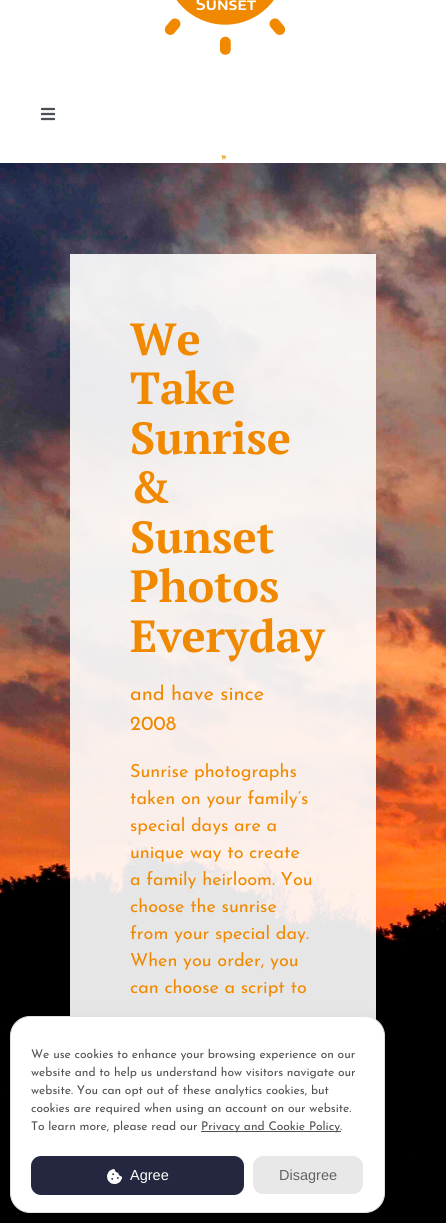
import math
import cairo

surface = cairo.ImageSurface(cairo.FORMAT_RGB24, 446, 1223)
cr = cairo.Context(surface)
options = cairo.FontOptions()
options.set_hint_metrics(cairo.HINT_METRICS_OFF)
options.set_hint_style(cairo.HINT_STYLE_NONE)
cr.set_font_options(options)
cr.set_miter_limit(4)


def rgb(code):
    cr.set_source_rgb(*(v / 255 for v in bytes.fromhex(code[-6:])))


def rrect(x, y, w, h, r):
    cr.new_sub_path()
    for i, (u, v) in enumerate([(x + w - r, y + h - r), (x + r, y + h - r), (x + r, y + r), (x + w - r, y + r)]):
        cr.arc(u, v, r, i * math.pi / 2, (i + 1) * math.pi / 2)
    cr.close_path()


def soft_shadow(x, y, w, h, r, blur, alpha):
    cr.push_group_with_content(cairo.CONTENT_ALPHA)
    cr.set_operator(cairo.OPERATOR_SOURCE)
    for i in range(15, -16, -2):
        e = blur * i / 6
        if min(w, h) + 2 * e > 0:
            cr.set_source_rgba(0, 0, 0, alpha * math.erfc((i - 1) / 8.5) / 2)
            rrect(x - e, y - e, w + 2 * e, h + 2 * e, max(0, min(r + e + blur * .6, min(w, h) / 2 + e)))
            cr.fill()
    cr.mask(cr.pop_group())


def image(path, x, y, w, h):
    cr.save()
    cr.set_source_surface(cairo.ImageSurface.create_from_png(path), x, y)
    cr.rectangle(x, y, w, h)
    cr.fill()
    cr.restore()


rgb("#ffffff")
cr.paint()
image("img/1.png", 164, 0, 122, 55)
image("img/2.png", 41, 107, 14, 14)
image("img/3.png", 221, 155, 5, 5)
image("img/4.png", 0, 163, 446, 1060)
cr.set_source_rgba(1, 1, 1, 0.9)
cr.rectangle(70, 254, 306, 766)
cr.fill()
rgb("#000000")
soft_shadow(33, 1039, 349, 171, 7, 18, 0.15)
rgb("#ffffff")
rrect(10.5, 1016.5, 374, 196, 19.5)
cr.fill_preserve()
rgb("#dee2e6")
cr.set_line_width(1)
cr.stroke()
rgb("#505050")
cr.rectangle(201, 1131, 140, 1)
cr.fill()
rgb("#24273f")
rrect(31, 1156, 213, 39, 10)
cr.fill()
image("img/5.png", 107, 1169, 15, 15)
rgb("#e8e8e8")
rrect(253, 1156, 110, 38, 10)
cr.fill()
cr.select_font_face("PT Serif", cairo.FONT_SLANT_NORMAL, cairo.FONT_WEIGHT_BOLD)
cr.set_font_size(45)
rgb("#f18900")
for x, y, s in [
    (130, 355, "We"),
    (130, 404, "Take"),
    (130, 454, "Sunrise"),
    (130, 503, "&"),
    (130, 553, "Sunset"),
    (130, 602, "Photos"),
    (130, 652, "Everyday"),
]:
    cr.move_to(x, y)
    cr.show_text(s)
cr.select_font_face("Josefin Sans")
cr.set_font_size(20)
cr.move_to(130, 700)
cr.show_text("and have since")
cr.move_to(130, 730)
cr.show_text("2008")
cr.set_font_size(18)
for x, y, s in [
    (130, 777, "Sunrise photographs"),
    (130, 804, "taken on your family’s"),
    (130, 831, "special days are a"),
    (130, 858, "unique way to create"),
    (130, 885, "a family heirloom. You"),
    (130, 912, "choose the sunrise"),
    (130, 939, "from your special day."),
    (130, 966, "When you order, you"),
    (130, 993, "can choose a script to"),
]:
    cr.move_to(x, y)
    cr.show_text(s)
cr.set_font_size(12)
rgb("#505050")
for x, y, s in [
    (31, 1058, "We use cookies to enhance your browsing experience on our"),
    (31, 1076, "website and to help us understand how visitors navigate our"),
    (31, 1094, "website. You can opt out of these analytics cookies, but"),
    (31, 1112, "cookies are required when using an account on our website."),
    (31, 1130, "To learn more, please read our"),
    (201, 1130, "Privacy and Cookie Policy."),
]:
    cr.move_to(x, y)
    cr.show_text(s)
cr.select_font_face("Liberation Sans")
cr.set_font_size(14.5)
rgb("#ffffff")
cr.move_to(130, 1180)
cr.show_text("Agree")
rgb("#636363")
cr.move_to(279, 1180)
cr.show_text("Disagree")
surface.write_to_png("page.png")
